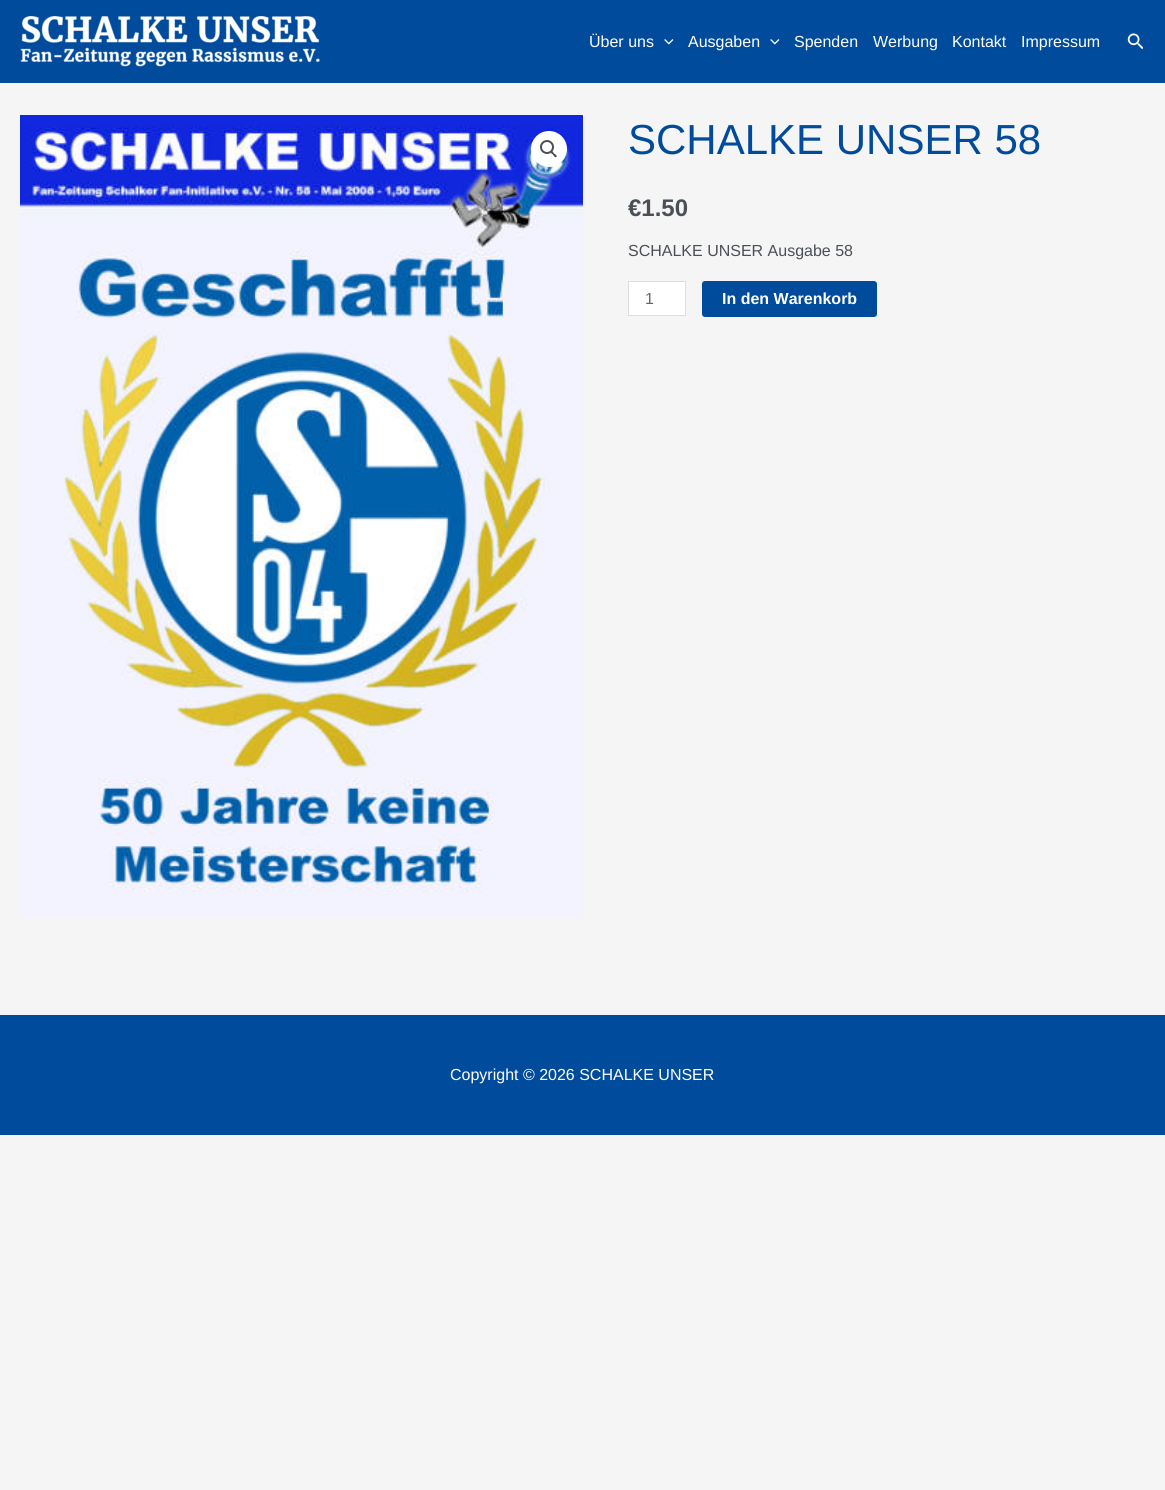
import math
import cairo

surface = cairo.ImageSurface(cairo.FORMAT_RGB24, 1165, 1490)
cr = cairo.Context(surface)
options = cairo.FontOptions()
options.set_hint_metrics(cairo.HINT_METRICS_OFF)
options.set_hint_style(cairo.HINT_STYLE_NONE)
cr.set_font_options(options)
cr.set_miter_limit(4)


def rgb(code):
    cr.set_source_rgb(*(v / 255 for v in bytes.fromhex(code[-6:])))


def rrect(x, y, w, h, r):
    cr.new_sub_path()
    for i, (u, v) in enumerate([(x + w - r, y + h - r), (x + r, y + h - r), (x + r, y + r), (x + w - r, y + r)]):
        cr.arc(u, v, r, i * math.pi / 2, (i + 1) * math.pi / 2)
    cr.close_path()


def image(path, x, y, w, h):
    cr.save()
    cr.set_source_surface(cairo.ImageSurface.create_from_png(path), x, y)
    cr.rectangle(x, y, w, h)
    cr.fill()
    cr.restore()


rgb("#f5f5f5")
cr.paint()
rgb("#004b9c")
cr.rectangle(0, 0, 1165, 83)
cr.fill()
image("img/1.png", 20, 16, 300, 51)
image("img/2.png", 664, 39, 10, 6)
image("img/2.png", 770, 39, 10, 6)
image("img/3.png", 1127, 33, 16, 17)
image("img/4.png", 20, 115, 563, 803)
rgb("#ffffff")
cr.arc(549, 149, 18, 0, 2 * math.pi)
cr.fill()
cr.arc(547, 147, 6, 0, 2 * math.pi)
rgb("#4b4f58")
cr.stroke()
cr.new_path()
cr.move_to(550.5, 151)
cr.curve_to(552, 150, 553.5, 152.5, 554, 153.5)
cr.curve_to(555, 154, 557.5, 155.5, 556.5, 157)
cr.curve_to(555, 158, 553.5, 155.5, 553, 154.5)
cr.curve_to(552, 154, 549.5, 152.5, 550.5, 151)
cr.close_path()
cr.fill()
rgb("#ffffff")
cr.rectangle(628.5, 281.5, 57, 34)
cr.fill_preserve()
rgb("#dddddd")
cr.set_line_width(1)
cr.stroke()
rgb("#004b9c")
rrect(702, 281, 175, 36, 3)
cr.fill()
cr.rectangle(0, 1015, 1165, 120)
cr.fill()
rgb("#f2f5f7")
cr.rectangle(0, 1014, 1165, 1)
cr.fill()
cr.select_font_face("Liberation Sans")
cr.set_font_size(16)
rgb("#ffffff")
for x, y, s in [
    (589, 47, "Über uns"),
    (688, 47, "Ausgaben"),
    (794, 47, "Spenden"),
    (873, 47, "Werbung"),
    (952, 47, "Kontakt"),
    (1021, 47, "Impressum"),
]:
    cr.move_to(x, y)
    cr.show_text(s)
cr.set_font_size(42)
rgb("#004b9c")
cr.move_to(628, 154)
cr.show_text("SCHALKE UNSER 58")
cr.select_font_face("Liberation Sans", cairo.FONT_SLANT_NORMAL, cairo.FONT_WEIGHT_BOLD)
cr.set_font_size(24)
rgb("#4b4f58")
cr.move_to(628, 216)
cr.show_text("€1.50")
cr.select_font_face("Liberation Sans")
cr.set_font_size(16)
cr.move_to(628, 256)
cr.show_text("SCHALKE UNSER Ausgabe 58")
rgb("#666666")
cr.move_to(645, 304)
cr.show_text("1")
cr.select_font_face("Liberation Sans", cairo.FONT_SLANT_NORMAL, cairo.FONT_WEIGHT_BOLD)
rgb("#ffffff")
cr.move_to(722, 304)
cr.show_text("In den Warenkorb")
cr.select_font_face("Liberation Sans")
cr.move_to(450, 1080)
cr.show_text("Copyright © 2026 SCHALKE UNSER")
surface.write_to_png("page.png")
